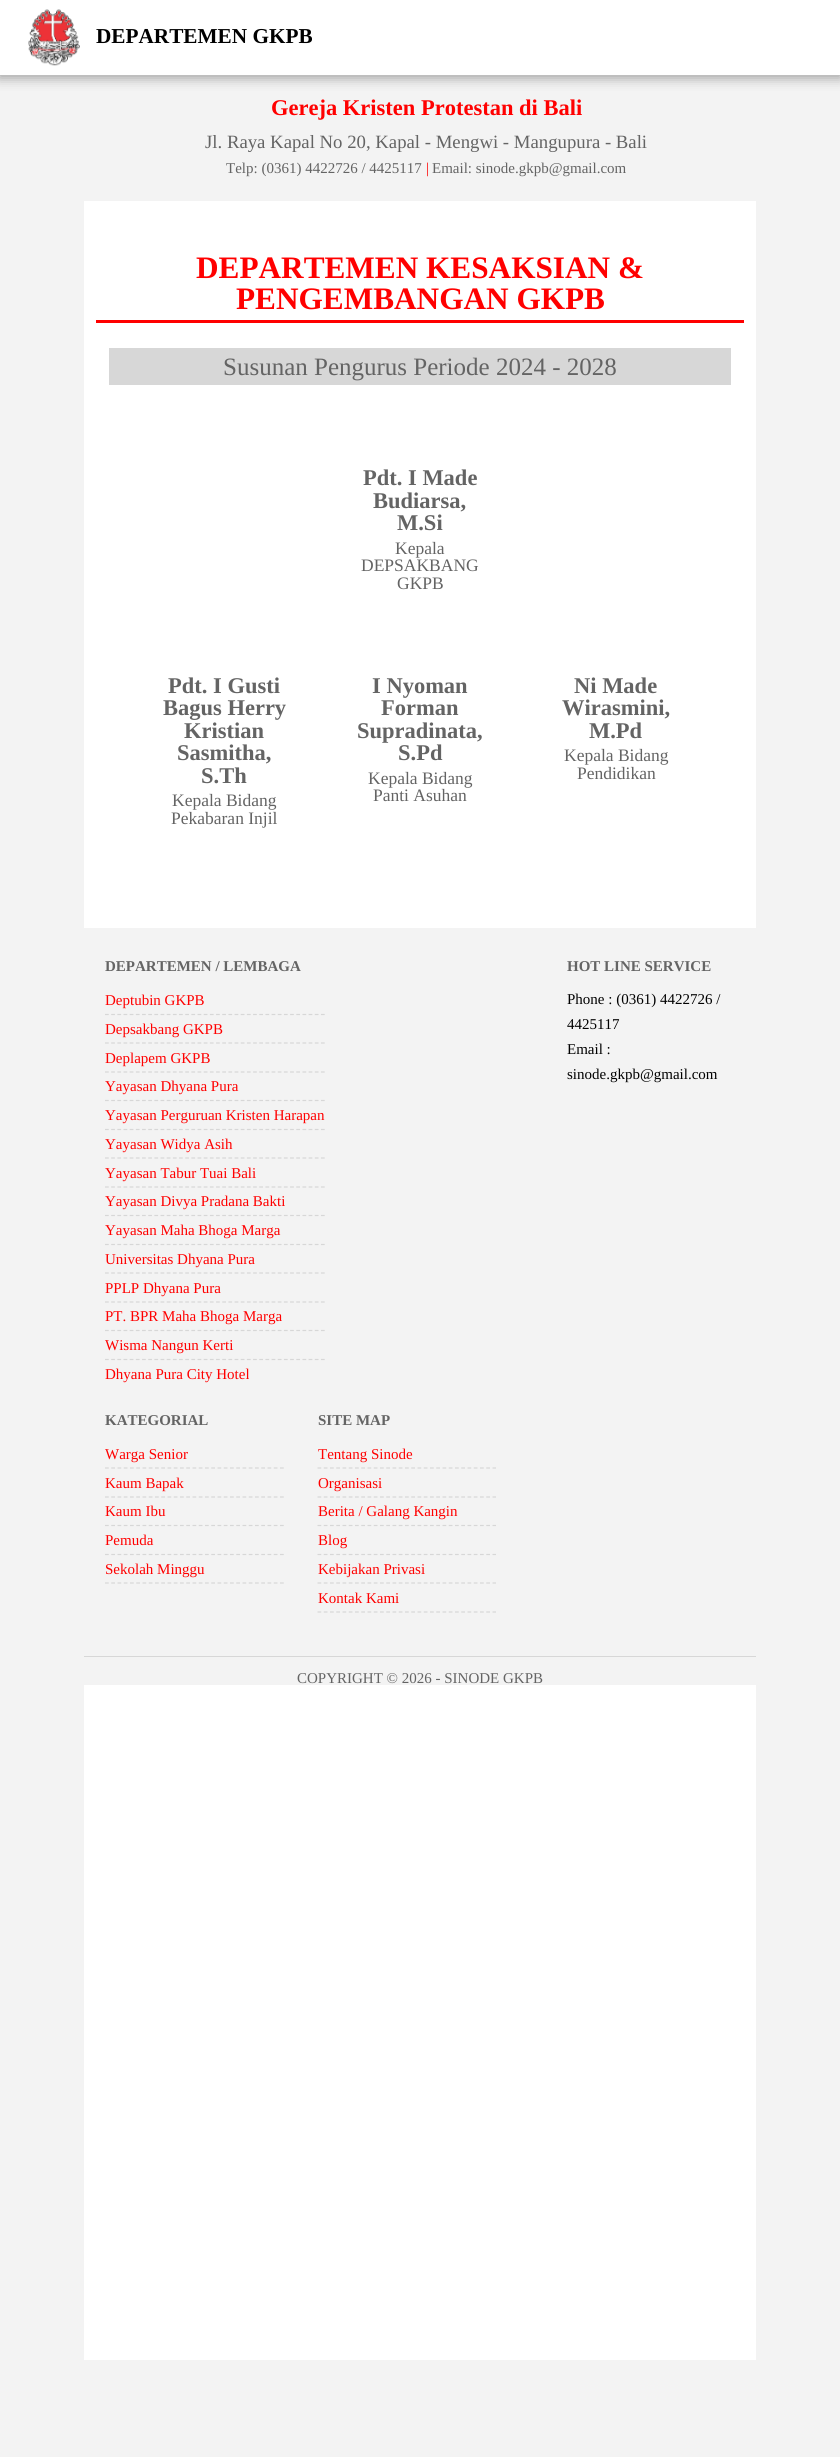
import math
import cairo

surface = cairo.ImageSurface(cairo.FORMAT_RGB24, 840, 2457)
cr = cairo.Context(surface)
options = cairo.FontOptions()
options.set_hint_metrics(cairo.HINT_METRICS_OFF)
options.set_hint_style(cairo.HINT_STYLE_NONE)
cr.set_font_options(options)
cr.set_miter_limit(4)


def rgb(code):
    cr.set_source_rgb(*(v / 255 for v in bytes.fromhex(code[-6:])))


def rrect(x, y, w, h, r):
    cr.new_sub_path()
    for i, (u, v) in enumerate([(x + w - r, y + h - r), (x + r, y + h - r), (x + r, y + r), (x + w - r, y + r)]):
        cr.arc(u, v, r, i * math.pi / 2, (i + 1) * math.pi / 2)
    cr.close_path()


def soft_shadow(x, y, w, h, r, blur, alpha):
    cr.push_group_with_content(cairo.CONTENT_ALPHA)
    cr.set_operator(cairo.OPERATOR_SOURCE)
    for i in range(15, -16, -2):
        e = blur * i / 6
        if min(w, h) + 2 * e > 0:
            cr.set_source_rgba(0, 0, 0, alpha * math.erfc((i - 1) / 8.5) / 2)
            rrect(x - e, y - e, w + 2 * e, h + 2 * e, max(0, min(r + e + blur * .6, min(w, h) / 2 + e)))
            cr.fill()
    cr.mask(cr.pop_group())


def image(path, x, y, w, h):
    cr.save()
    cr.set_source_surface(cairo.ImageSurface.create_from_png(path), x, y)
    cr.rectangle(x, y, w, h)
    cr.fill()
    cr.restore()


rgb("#f3f3f3")
cr.paint()
rgb("#000000")
soft_shadow(-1, 0, 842, 78, 0, 6, 0.35)
rgb("#ffffff")
cr.rectangle(0, 0, 840, 75)
cr.fill()
image("img/1.png", 28, 9, 52, 57)
for x, y, w, h, color in [
    (84, 201, 672, 2159, "#ffffff"),
    (96, 320, 648, 3, "#ff0000"),
    (109, 348, 622, 37, "#d7d7d7"),
    (84, 928, 672, 757, "#f3f3f3"),
]:
    rgb(color)
    cr.rectangle(x, y, w, h)
    cr.fill()
cr.new_path()
cr.move_to(105, 1014.5)
cr.line_to(325, 1014.5)
rgb("#d7d7d7")
cr.set_line_width(1.2)
cr.set_dash([3.75, 2.42])
cr.stroke()
cr.new_path()
cr.move_to(105, 1043)
cr.line_to(325, 1043)
cr.stroke()
cr.new_path()
cr.move_to(105, 1072)
cr.line_to(325, 1072)
cr.stroke()
cr.new_path()
cr.move_to(105, 1100.5)
cr.line_to(325, 1100.5)
cr.stroke()
cr.new_path()
cr.move_to(105, 1129.5)
cr.line_to(325, 1129.5)
cr.stroke()
cr.new_path()
cr.move_to(105, 1158)
cr.line_to(325, 1158)
cr.stroke()
cr.new_path()
cr.move_to(105, 1187)
cr.line_to(325, 1187)
cr.stroke()
cr.new_path()
cr.move_to(105, 1215.5)
cr.line_to(325, 1215.5)
cr.stroke()
cr.new_path()
cr.move_to(105, 1244.5)
cr.line_to(325, 1244.5)
cr.stroke()
cr.new_path()
cr.move_to(105, 1273)
cr.line_to(325, 1273)
cr.stroke()
cr.new_path()
cr.move_to(105, 1302)
cr.line_to(325, 1302)
cr.stroke()
cr.new_path()
cr.move_to(105, 1330.5)
cr.line_to(325, 1330.5)
cr.stroke()
cr.new_path()
cr.move_to(105, 1359.5)
cr.line_to(325, 1359.5)
cr.stroke()
cr.new_path()
cr.move_to(105, 1468)
cr.line_to(284, 1468)
cr.set_dash([3.75, 2.5])
cr.stroke()
cr.new_path()
cr.move_to(105, 1497)
cr.line_to(284, 1497)
cr.stroke()
cr.new_path()
cr.move_to(105, 1525.5)
cr.line_to(284, 1525.5)
cr.stroke()
cr.new_path()
cr.move_to(105, 1554.5)
cr.line_to(284, 1554.5)
cr.stroke()
cr.new_path()
cr.move_to(105, 1583)
cr.line_to(284, 1583)
cr.stroke()
cr.new_path()
cr.move_to(317.5, 1468)
cr.line_to(496, 1468)
cr.stroke()
cr.new_path()
cr.move_to(317.5, 1497)
cr.line_to(496, 1497)
cr.stroke()
cr.new_path()
cr.move_to(317.5, 1525.5)
cr.line_to(496, 1525.5)
cr.stroke()
cr.new_path()
cr.move_to(317.5, 1554.5)
cr.line_to(496, 1554.5)
cr.stroke()
cr.new_path()
cr.move_to(317.5, 1583)
cr.line_to(496, 1583)
cr.stroke()
cr.new_path()
cr.move_to(317.5, 1612)
cr.line_to(496, 1612)
cr.stroke()
cr.rectangle(84, 1656, 672, 1)
cr.fill()
cr.select_font_face("Liberation Serif", cairo.FONT_SLANT_NORMAL, cairo.FONT_WEIGHT_BOLD)
cr.set_font_size(21.25)
rgb("#000000")
cr.move_to(96, 43)
cr.show_text("DEPARTEMEN GKPB")
cr.set_font_size(22.5)
rgb("#ff0000")
cr.move_to(271, 115)
cr.show_text("Gereja Kristen Protestan di Bali")
cr.select_font_face("Liberation Serif")
cr.set_font_size(18.75)
rgb("#646464")
cr.move_to(205, 148)
cr.show_text("Jl. Raya Kapal No 20, Kapal - Mengwi - Mangupura - Bali")
cr.set_font_size(15)
cr.move_to(226, 173)
cr.show_text("Telp: (0361) 4422726 / 4425117")
rgb("#ff0000")
cr.move_to(426, 173)
cr.show_text("|")
rgb("#646464")
cr.move_to(432, 173)
cr.show_text("Email: sinode.gkpb@gmail.com")
cr.select_font_face("Liberation Serif", cairo.FONT_SLANT_NORMAL, cairo.FONT_WEIGHT_BOLD)
cr.set_font_size(31.25)
rgb("#ff0000")
cr.move_to(196, 278)
cr.show_text("DEPARTEMEN KESAKSIAN &")
cr.move_to(236, 309)
cr.show_text("PENGEMBANGAN GKPB")
cr.select_font_face("Liberation Serif")
cr.set_font_size(25)
rgb("#646464")
cr.move_to(223, 375)
cr.show_text("Susunan Pengurus Periode 2024 - 2028")
cr.select_font_face("Liberation Serif", cairo.FONT_SLANT_NORMAL, cairo.FONT_WEIGHT_BOLD)
cr.set_font_size(22.5)
for x, y, s in [
    (363, 485, "Pdt. I Made"),
    (373, 508, "Budiarsa,"),
    (397, 530, "M.Si"),
]:
    cr.move_to(x, y)
    cr.show_text(s)
cr.select_font_face("Liberation Serif")
cr.set_font_size(17.5)
for x, y, s in [
    (395, 554, "Kepala"),
    (361, 571, "DEPSAKBANG"),
    (397, 589, "GKPB"),
]:
    cr.move_to(x, y)
    cr.show_text(s)
cr.select_font_face("Liberation Serif", cairo.FONT_SLANT_NORMAL, cairo.FONT_WEIGHT_BOLD)
cr.set_font_size(22.5)
for x, y, s in [
    (168, 693, "Pdt. I Gusti"),
    (163, 715, "Bagus Herry"),
    (184, 738, "Kristian"),
    (177, 760, "Sasmitha,"),
    (201, 783, "S.Th"),
]:
    cr.move_to(x, y)
    cr.show_text(s)
cr.select_font_face("Liberation Serif")
cr.set_font_size(17.5)
cr.move_to(172, 806)
cr.show_text("Kepala Bidang")
cr.move_to(171, 824)
cr.show_text("Pekabaran Injil")
cr.select_font_face("Liberation Serif", cairo.FONT_SLANT_NORMAL, cairo.FONT_WEIGHT_BOLD)
cr.set_font_size(22.5)
for x, y, s in [
    (372, 693, "I Nyoman"),
    (381, 715, "Forman"),
    (357, 738, "Supradinata,"),
    (398, 760, "S.Pd"),
]:
    cr.move_to(x, y)
    cr.show_text(s)
cr.select_font_face("Liberation Serif")
cr.set_font_size(17.5)
cr.move_to(368, 784)
cr.show_text("Kepala Bidang")
cr.move_to(373, 801)
cr.show_text("Panti Asuhan")
cr.select_font_face("Liberation Serif", cairo.FONT_SLANT_NORMAL, cairo.FONT_WEIGHT_BOLD)
cr.set_font_size(22.5)
for x, y, s in [
    (574, 693, "Ni Made"),
    (562, 715, "Wirasmini,"),
    (589, 738, "M.Pd"),
]:
    cr.move_to(x, y)
    cr.show_text(s)
cr.select_font_face("Liberation Serif")
cr.set_font_size(17.5)
cr.move_to(564, 761)
cr.show_text("Kepala Bidang")
cr.move_to(577, 779)
cr.show_text("Pendidikan")
cr.select_font_face("Liberation Serif", cairo.FONT_SLANT_NORMAL, cairo.FONT_WEIGHT_BOLD)
cr.set_font_size(15)
cr.move_to(105, 971)
cr.show_text("DEPARTEMEN / LEMBAGA")
cr.select_font_face("Liberation Serif")
rgb("#ff0000")
for x, y, s in [
    (105, 1005, "Deptubin GKPB"),
    (105, 1034, "Depsakbang GKPB"),
    (105, 1063, "Deplapem GKPB"),
    (105, 1091, "Yayasan Dhyana Pura"),
    (105, 1120, "Yayasan Perguruan Kristen Harapan"),
    (105, 1149, "Yayasan Widya Asih"),
    (105, 1178, "Yayasan Tabur Tuai Bali"),
    (105, 1206, "Yayasan Divya Pradana Bakti"),
    (105, 1235, "Yayasan Maha Bhoga Marga"),
    (105, 1264, "Universitas Dhyana Pura"),
    (105, 1293, "PPLP Dhyana Pura"),
    (105, 1321, "PT. BPR Maha Bhoga Marga"),
    (105, 1350, "Wisma Nangun Kerti"),
    (105, 1379, "Dhyana Pura City Hotel"),
]:
    cr.move_to(x, y)
    cr.show_text(s)
cr.select_font_face("Liberation Serif", cairo.FONT_SLANT_NORMAL, cairo.FONT_WEIGHT_BOLD)
rgb("#646464")
cr.move_to(105, 1425)
cr.show_text("KATEGORIAL")
cr.select_font_face("Liberation Serif")
rgb("#ff0000")
for x, y, s in [
    (105, 1459, "Warga Senior"),
    (105, 1488, "Kaum Bapak"),
    (105, 1516, "Kaum Ibu"),
    (105, 1545, "Pemuda"),
    (105, 1574, "Sekolah Minggu"),
]:
    cr.move_to(x, y)
    cr.show_text(s)
cr.select_font_face("Liberation Serif", cairo.FONT_SLANT_NORMAL, cairo.FONT_WEIGHT_BOLD)
rgb("#646464")
cr.move_to(318, 1425)
cr.show_text("SITE MAP")
cr.select_font_face("Liberation Serif")
rgb("#ff0000")
for x, y, s in [
    (318, 1459, "Tentang Sinode"),
    (318, 1488, "Organisasi"),
    (318, 1516, "Berita / Galang Kangin"),
    (318, 1545, "Blog"),
    (318, 1574, "Kebijakan Privasi"),
    (318, 1603, "Kontak Kami"),
]:
    cr.move_to(x, y)
    cr.show_text(s)
cr.select_font_face("Liberation Serif", cairo.FONT_SLANT_NORMAL, cairo.FONT_WEIGHT_BOLD)
rgb("#646464")
cr.move_to(567, 971)
cr.show_text("HOT LINE SERVICE")
cr.select_font_face("Liberation Serif")
rgb("#000000")
for x, y, s in [
    (567, 1004, "Phone : (0361) 4422726 /"),
    (567, 1029, "4425117"),
    (567, 1054, "Email :"),
    (567, 1079, "sinode.gkpb@gmail.com"),
]:
    cr.move_to(x, y)
    cr.show_text(s)
rgb("#646464")
cr.move_to(297, 1683)
cr.show_text("COPYRIGHT © 2026 - SINODE GKPB")
surface.write_to_png("page.png")
